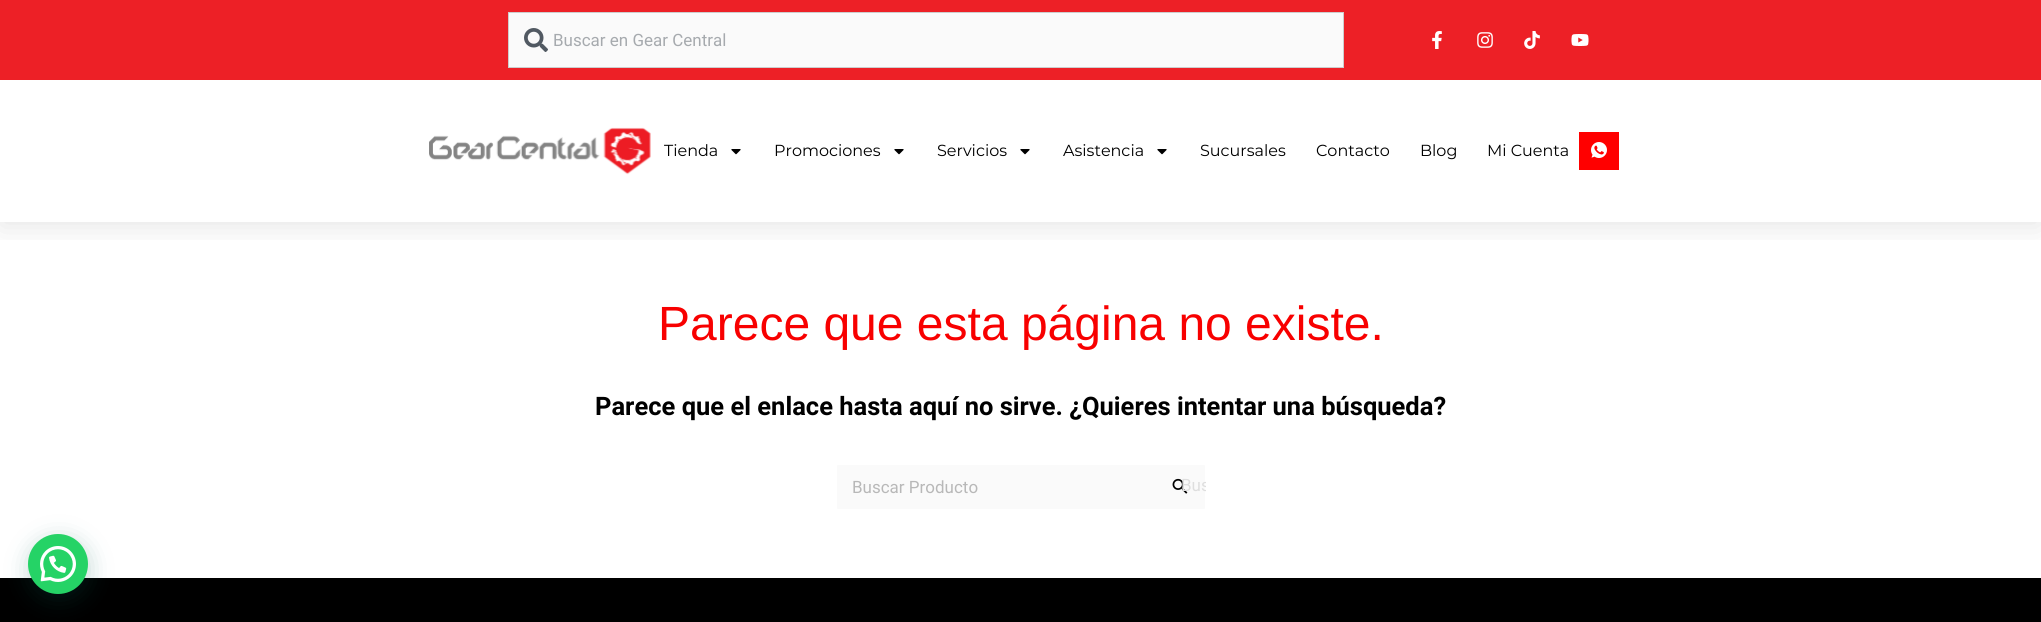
import math
import cairo

surface = cairo.ImageSurface(cairo.FORMAT_RGB24, 2041, 622)
cr = cairo.Context(surface)
options = cairo.FontOptions()
options.set_hint_metrics(cairo.HINT_METRICS_OFF)
options.set_hint_style(cairo.HINT_STYLE_NONE)
cr.set_font_options(options)
cr.set_miter_limit(4)


def rgb(code):
    cr.set_source_rgb(*(v / 255 for v in bytes.fromhex(code[-6:])))


def rrect(x, y, w, h, r):
    cr.new_sub_path()
    for i, (u, v) in enumerate([(x + w - r, y + h - r), (x + r, y + h - r), (x + r, y + r), (x + w - r, y + r)]):
        cr.arc(u, v, r, i * math.pi / 2, (i + 1) * math.pi / 2)
    cr.close_path()


def soft_shadow(x, y, w, h, r, blur, alpha):
    cr.push_group_with_content(cairo.CONTENT_ALPHA)
    cr.set_operator(cairo.OPERATOR_SOURCE)
    for i in range(15, -16, -2):
        e = blur * i / 6
        if min(w, h) + 2 * e > 0:
            cr.set_source_rgba(0, 0, 0, alpha * math.erfc((i - 1) / 8.5) / 2)
            rrect(x - e, y - e, w + 2 * e, h + 2 * e, max(0, min(r + e + blur * .6, min(w, h) / 2 + e)))
            cr.fill()
    cr.mask(cr.pop_group())


def image(path, x, y, w, h):
    cr.save()
    cr.set_source_surface(cairo.ImageSurface.create_from_png(path), x, y)
    cr.rectangle(x, y, w, h)
    cr.fill()
    cr.restore()


rgb("#ffffff")
cr.paint()
cr.save()
cr.rectangle(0, 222, 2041, 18)
cr.clip()
rgb("#000000")
soft_shadow(0, 5, 2041, 222, 0, 15, 0.1)
cr.restore()
rgb("#ed2026")
cr.rectangle(0, 0, 2041, 80)
cr.fill()
rgb("#fafafa")
cr.rectangle(508.5, 12.5, 835, 55)
cr.fill_preserve()
rgb("#cdcdcd")
cr.set_line_width(1)
cr.stroke()
image("img/1.png", 524, 28, 24, 24)
image("img/2.png", 1432, 31, 10, 18)
image("img/3.png", 1477, 32, 16, 16)
image("img/4.png", 1524, 31, 16, 18)
image("img/5.png", 1571, 34, 18, 12)
image("img/6.png", 429, 127, 222, 48)
image("img/7.png", 731, 149, 10, 6)
image("img/7.png", 894, 149, 10, 6)
image("img/7.png", 1020, 149, 10, 6)
image("img/7.png", 1157, 149, 10, 6)
gradient = cairo.RadialGradient(0, 0, 0, 0, 0, 1)
gradient.set_matrix(cairo.Matrix(1 / 57, 0, 0, 1 / 27, -1 * 1579 / 57, -1 * 151 / 27))
gradient.add_color_stop_rgba(0, 0, 0, 0, 1)
gradient.add_color_stop_rgba(0, 1, 0, 0, 1)
cr.set_source(gradient)
cr.rectangle(1579, 132, 40, 38)
cr.fill()
image("img/8.png", 1591, 142, 16, 16)
rgb("#fafafa")
rrect(836.5, 464.5, 369, 45, 1.5)
cr.fill_preserve()
rgb("#ffffff")
cr.stroke()
image("img/9.png", 1172, 478, 16, 16)
rgb("#000000")
cr.rectangle(0, 578, 2041, 44)
cr.fill()
rgb("#075e54")
soft_shadow(29, 540, 60, 60, 30, 12, 0.24)
rgb("#25d366")
cr.arc(58, 564, 30, 0, 2 * math.pi)
cr.fill()
image("img/10.png", 40, 546, 36, 36)
cr.select_font_face("Roboto")
cr.set_font_size(17)
rgb("#a6aaae")
cr.move_to(553, 46)
cr.show_text("Buscar en Gear Central")
cr.select_font_face("Montserrat")
cr.set_font_size(16)
rgb("#000000")
for x, y, s in [
    (664, 156, "Tienda"),
    (774, 156, "Promociones"),
    (937, 156, "Servicios"),
    (1063, 156, "Asistencia"),
    (1200, 156, "Sucursales"),
    (1316, 156, "Contacto"),
    (1420, 156, "Blog"),
    (1487, 156, "Mi Cuenta"),
]:
    cr.move_to(x, y)
    cr.show_text(s)
cr.select_font_face("Liberation Sans")
cr.set_font_size(48)
rgb("#f80000")
cr.move_to(658, 340)
cr.show_text("Parece que esta página no existe.")
cr.select_font_face("Roboto", cairo.FONT_SLANT_NORMAL, cairo.FONT_WEIGHT_BOLD)
cr.set_font_size(25.5)
rgb("#000000")
cr.move_to(595, 415)
cr.show_text("Parece que el enlace hasta aquí no sirve. ¿Quieres intentar una búsqueda?")
cr.select_font_face("Roboto")
cr.set_font_size(17)
rgb("#b8b8b8")
cr.move_to(852, 493)
cr.show_text("Buscar Producto")
cr.save()
rrect(1161, 464, 45, 43, 2)
cr.clip()
rgb("#dedede")
cr.move_to(1181, 491)
cr.show_text("Bus")
cr.restore()
surface.write_to_png("page.png")
